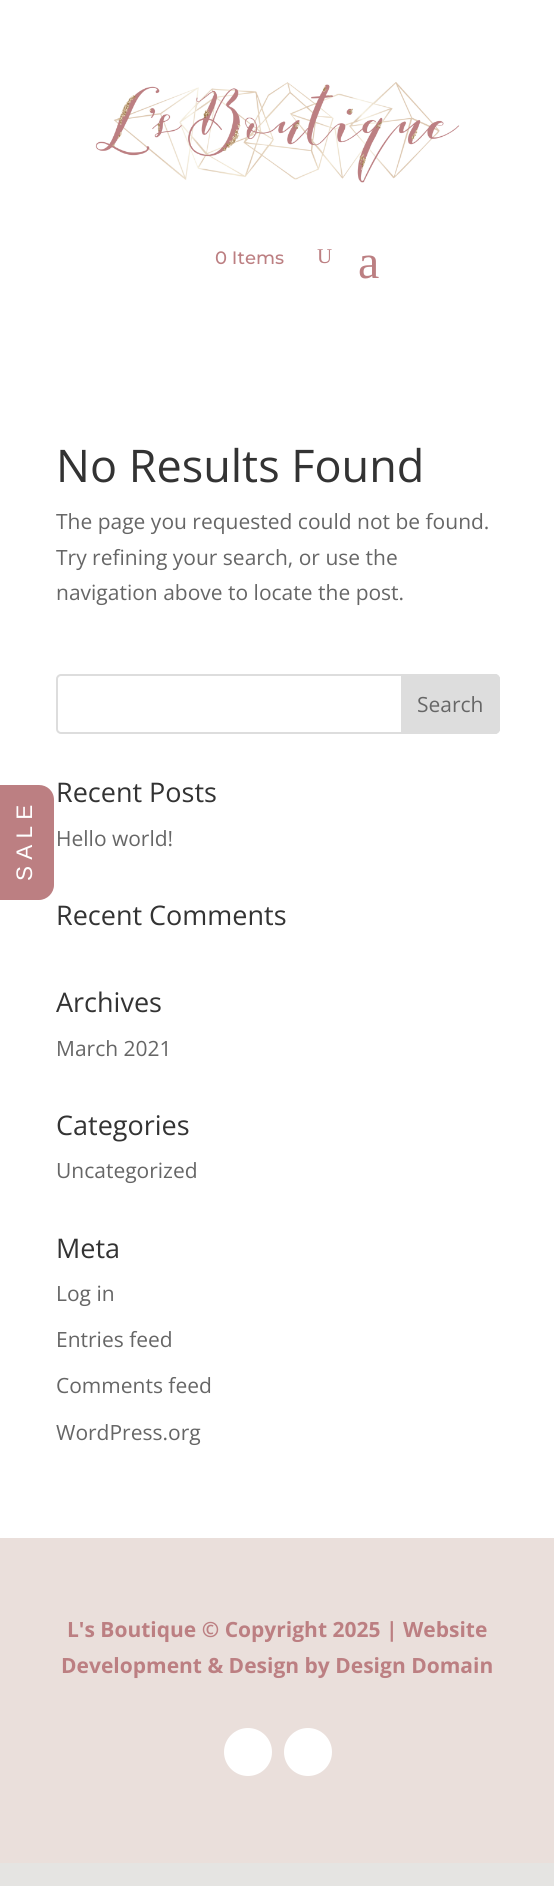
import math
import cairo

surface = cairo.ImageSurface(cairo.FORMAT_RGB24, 554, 1886)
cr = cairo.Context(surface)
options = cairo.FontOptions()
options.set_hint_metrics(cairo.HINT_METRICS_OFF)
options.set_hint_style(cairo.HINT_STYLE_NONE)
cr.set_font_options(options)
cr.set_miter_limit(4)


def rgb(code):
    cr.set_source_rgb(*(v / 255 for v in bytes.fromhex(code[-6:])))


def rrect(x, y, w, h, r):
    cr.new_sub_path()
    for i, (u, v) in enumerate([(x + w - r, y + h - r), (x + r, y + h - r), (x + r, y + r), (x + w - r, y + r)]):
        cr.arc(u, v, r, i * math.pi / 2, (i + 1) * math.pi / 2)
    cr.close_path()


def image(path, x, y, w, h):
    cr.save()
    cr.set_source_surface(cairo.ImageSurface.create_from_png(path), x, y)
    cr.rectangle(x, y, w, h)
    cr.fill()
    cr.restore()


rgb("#e5e4e2")
cr.paint()
rgb("#ffffff")
cr.rectangle(0, 0, 554, 1538)
cr.fill()
rgb("#bc7f82")
cr.new_path()
cr.move_to(-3, 900)
cr.line_to(-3, 785)
cr.line_to(39, 785)
cr.curve_to(47, 785, 54, 791, 54, 800)
cr.line_to(54, 885)
cr.curve_to(54, 893, 47, 900, 39, 900)
cr.close_path()
cr.fill()
image("img/1.png", 95, 82, 365, 101)
rrect(57, 675, 442, 58, 4)
rgb("#dddddd")
cr.stroke()
cr.new_path()
cr.move_to(402, 675)
cr.line_to(495, 675)
cr.curve_to(497, 675, 499, 677, 499, 679)
cr.line_to(499, 729)
cr.curve_to(499, 731, 497, 733, 495, 733)
cr.line_to(402, 733)
cr.close_path()
cr.fill_preserve()
cr.stroke()
rgb("#eadfdb")
cr.rectangle(0, 1538, 554, 325)
cr.fill()
rgb("#ffffff")
cr.arc(248, 1752, 24, 0, 2 * math.pi)
cr.fill()
cr.arc(308, 1752, 24, 0, 2 * math.pi)
cr.fill()
cr.select_font_face("Liberation Sans")
cr.set_font_size(22.5)
cr.save()
cr.translate(32, 881)
cr.rotate(-90 * math.pi / 180)
cr.move_to(0, 0)
cr.show_text("S A L E")
cr.restore()
cr.select_font_face("Montserrat Thin")
cr.set_font_size(18)
rgb("#bc7f82")
cr.move_to(215, 264)
cr.show_text("0 Items")
cr.select_font_face("Liberation Serif")
cr.set_font_size(21)
cr.move_to(317, 263)
cr.show_text("U")
cr.set_font_size(48)
cr.move_to(358, 278)
cr.show_text("a")
cr.select_font_face("Open Sans")
cr.set_font_size(45)
rgb("#333333")
cr.move_to(56, 482)
cr.show_text("No Results Found")
cr.set_font_size(21)
rgb("#666666")
for x, y, s in [
    (56, 529, "The page you requested could not be found."),
    (56, 565, "Try refining your search, or use the"),
    (56, 600, "navigation above to locate the post."),
    (417, 712, "Search"),
]:
    cr.move_to(x, y)
    cr.show_text(s)
cr.set_font_size(27)
rgb("#333333")
cr.move_to(56, 802)
cr.show_text("Recent Posts")
cr.set_font_size(21)
rgb("#666666")
cr.move_to(56, 846)
cr.show_text("Hello world!")
cr.set_font_size(27)
rgb("#333333")
cr.move_to(56, 925)
cr.show_text("Recent Comments")
cr.move_to(56, 1012)
cr.show_text("Archives")
cr.set_font_size(21)
rgb("#666666")
cr.move_to(56, 1056)
cr.show_text("March 2021")
cr.set_font_size(27)
rgb("#333333")
cr.move_to(56, 1135)
cr.show_text("Categories")
cr.set_font_size(21)
rgb("#666666")
cr.move_to(56, 1178)
cr.show_text("Uncategorized")
cr.set_font_size(27)
rgb("#333333")
cr.move_to(56, 1258)
cr.show_text("Meta")
cr.set_font_size(21)
rgb("#666666")
for x, y, s in [
    (56, 1301, "Log in"),
    (56, 1347, "Entries feed"),
    (56, 1393, "Comments feed"),
    (56, 1440, "WordPress.org"),
]:
    cr.move_to(x, y)
    cr.show_text(s)
cr.select_font_face("Open Sans", cairo.FONT_SLANT_NORMAL, cairo.FONT_WEIGHT_BOLD)
rgb("#bc7f82")
cr.move_to(67, 1637)
cr.show_text("L's Boutique © Copyright 2025 | Website")
cr.move_to(61, 1673)
cr.show_text("Development & Design by Design Domain")
surface.write_to_png("page.png")
